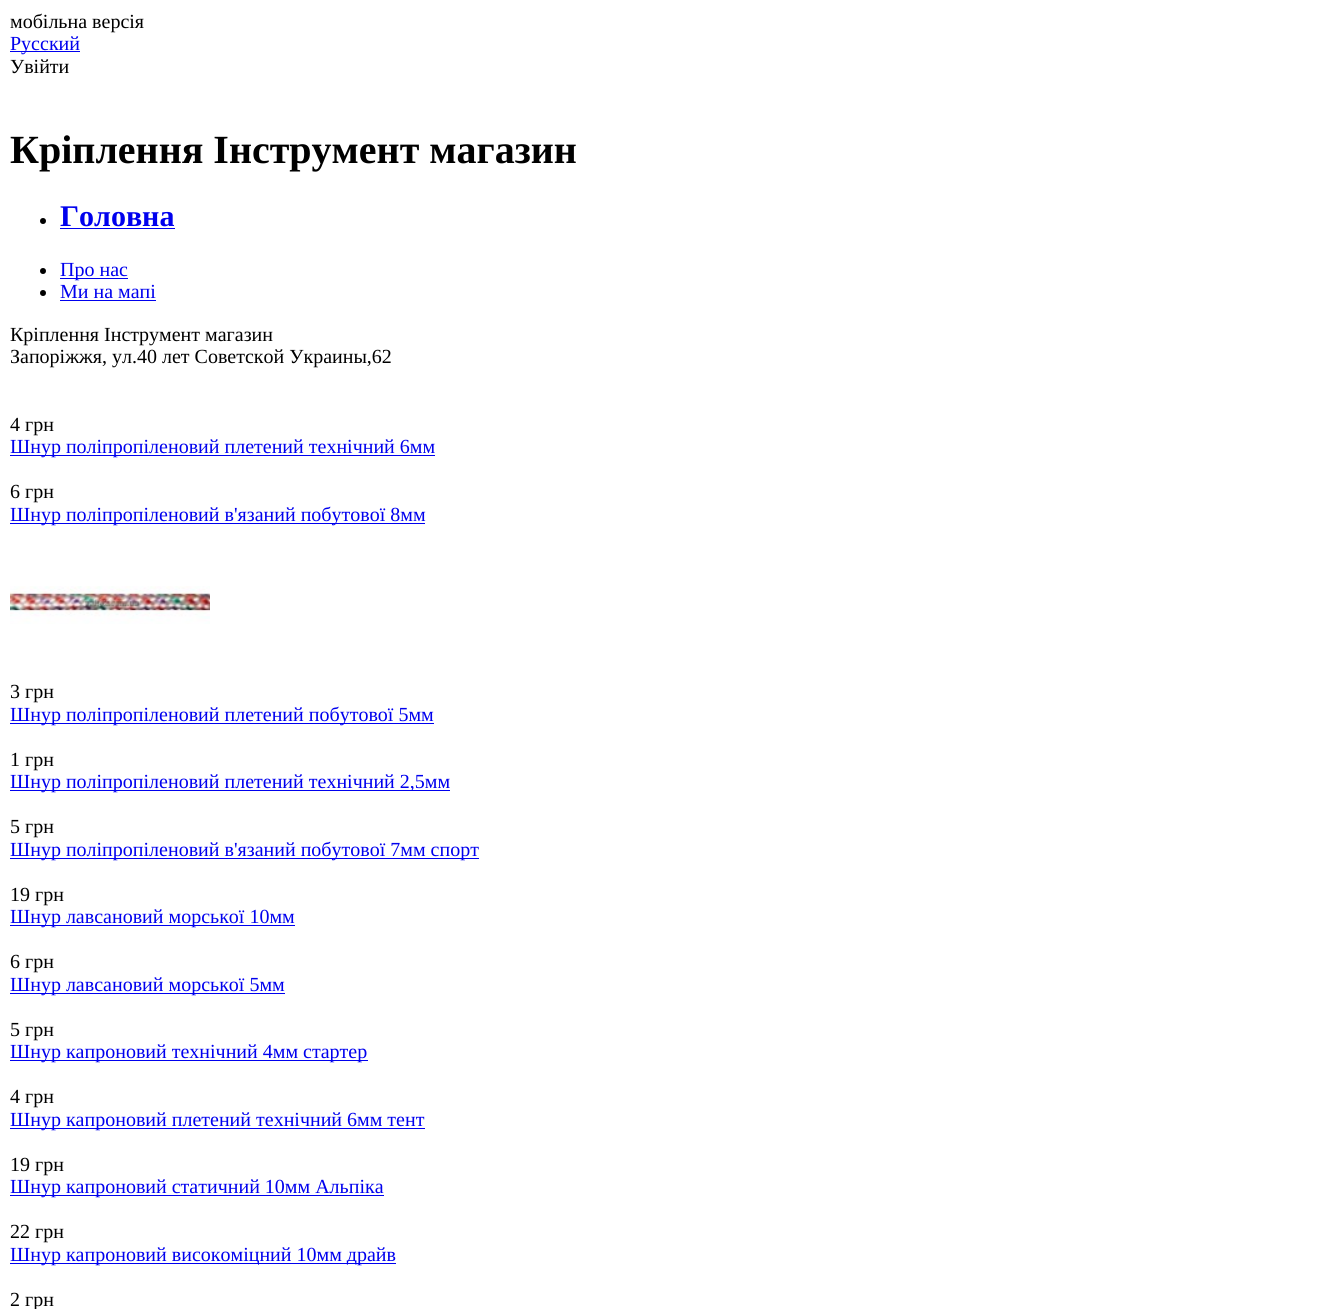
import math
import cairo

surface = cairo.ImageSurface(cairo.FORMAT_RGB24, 1323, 1309)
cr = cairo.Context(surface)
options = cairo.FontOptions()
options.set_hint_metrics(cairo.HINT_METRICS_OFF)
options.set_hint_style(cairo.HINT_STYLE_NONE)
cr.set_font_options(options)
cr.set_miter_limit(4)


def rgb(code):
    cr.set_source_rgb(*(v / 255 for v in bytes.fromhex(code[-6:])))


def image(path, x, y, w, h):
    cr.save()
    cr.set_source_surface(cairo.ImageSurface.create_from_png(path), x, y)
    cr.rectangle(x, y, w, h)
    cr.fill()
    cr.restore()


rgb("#ffffff")
cr.paint()
rgb("#0000ee")
cr.rectangle(10, 51, 70, 1)
cr.fill()
rgb("#000000")
cr.arc(43, 221, 3, 0, 2 * math.pi)
cr.fill()
rgb("#0000ee")
cr.rectangle(60, 228, 115, 1)
cr.fill()
rgb("#000000")
cr.arc(43, 271, 3, 0, 2 * math.pi)
cr.fill()
rgb("#0000ee")
cr.rectangle(60, 278, 68, 1)
cr.fill()
rgb("#000000")
cr.arc(43, 293, 3, 0, 2 * math.pi)
cr.fill()
for x, y, w, h, color in [
    (60, 300, 96, 1, "#0000ee"),
    (10, 455, 425, 1, "#0000ee"),
    (10, 523, 415, 1, "#0000ee"),
]:
    rgb(color)
    cr.rectangle(x, y, w, h)
    cr.fill()
image("img/1.png", 10, 586, 200, 38)
for x, y, w, h, color in [
    (10, 723, 424, 1, "#0000ee"),
    (10, 790, 440, 1, "#0000ee"),
    (10, 858, 469, 1, "#0000ee"),
    (10, 925, 285, 1, "#0000ee"),
    (10, 993, 275, 1, "#0000ee"),
    (10, 1060, 358, 1, "#0000ee"),
    (10, 1128, 415, 1, "#0000ee"),
    (10, 1195, 374, 1, "#0000ee"),
    (10, 1263, 386, 1, "#0000ee"),
]:
    rgb(color)
    cr.rectangle(x, y, w, h)
    cr.fill()
cr.select_font_face("Liberation Serif")
cr.set_font_size(20)
rgb("#000000")
cr.move_to(10, 28)
cr.show_text("мобільна версія")
rgb("#0000ee")
cr.move_to(10, 50)
cr.show_text("Русский")
rgb("#000000")
cr.move_to(10, 73)
cr.show_text("Увійти")
cr.select_font_face("Liberation Serif", cairo.FONT_SLANT_NORMAL, cairo.FONT_WEIGHT_BOLD)
cr.set_font_size(40)
cr.move_to(10, 163)
cr.show_text("Кріплення Інструмент магазин")
cr.set_font_size(30)
rgb("#0000ee")
cr.move_to(60, 226)
cr.show_text("Головна")
cr.select_font_face("Liberation Serif")
cr.set_font_size(20)
cr.move_to(60, 276)
cr.show_text("Про нас")
cr.move_to(60, 298)
cr.show_text("Ми на мапi")
rgb("#000000")
for x, y, s in [
    (10, 341, "Кріплення Інструмент магазин"),
    (10, 363, "Запоріжжя, ул.40 лет Советской Украины,62"),
    (10, 431, "4 грн"),
]:
    cr.move_to(x, y)
    cr.show_text(s)
rgb("#0000ee")
cr.move_to(10, 453)
cr.show_text("Шнур поліпропіленовий плетений технічний 6мм")
rgb("#000000")
cr.move_to(10, 498)
cr.show_text("6 грн")
rgb("#0000ee")
cr.move_to(10, 521)
cr.show_text("Шнур поліпропіленовий в'язаний побутової 8мм")
rgb("#000000")
cr.move_to(10, 698)
cr.show_text("3 грн")
rgb("#0000ee")
cr.move_to(10, 721)
cr.show_text("Шнур поліпропіленовий плетений побутової 5мм")
rgb("#000000")
cr.move_to(10, 766)
cr.show_text("1 грн")
rgb("#0000ee")
cr.move_to(10, 788)
cr.show_text("Шнур поліпропіленовий плетений технічний 2,5мм")
rgb("#000000")
cr.move_to(10, 833)
cr.show_text("5 грн")
rgb("#0000ee")
cr.move_to(10, 856)
cr.show_text("Шнур поліпропіленовий в'язаний побутової 7мм спорт")
rgb("#000000")
cr.move_to(10, 901)
cr.show_text("19 грн")
rgb("#0000ee")
cr.move_to(10, 923)
cr.show_text("Шнур лавсановий морської 10мм")
rgb("#000000")
cr.move_to(10, 968)
cr.show_text("6 грн")
rgb("#0000ee")
cr.move_to(10, 991)
cr.show_text("Шнур лавсановий морської 5мм")
rgb("#000000")
cr.move_to(10, 1036)
cr.show_text("5 грн")
rgb("#0000ee")
cr.move_to(10, 1058)
cr.show_text("Шнур капроновий технічний 4мм стартер")
rgb("#000000")
cr.move_to(10, 1103)
cr.show_text("4 грн")
rgb("#0000ee")
cr.move_to(10, 1126)
cr.show_text("Шнур капроновий плетений технічний 6мм тент")
rgb("#000000")
cr.move_to(10, 1171)
cr.show_text("19 грн")
rgb("#0000ee")
cr.move_to(10, 1193)
cr.show_text("Шнур капроновий статичний 10мм Альпіка")
rgb("#000000")
cr.move_to(10, 1238)
cr.show_text("22 грн")
rgb("#0000ee")
cr.move_to(10, 1261)
cr.show_text("Шнур капроновий високоміцний 10мм драйв")
rgb("#000000")
cr.move_to(10, 1306)
cr.show_text("2 грн")
surface.write_to_png("page.png")
